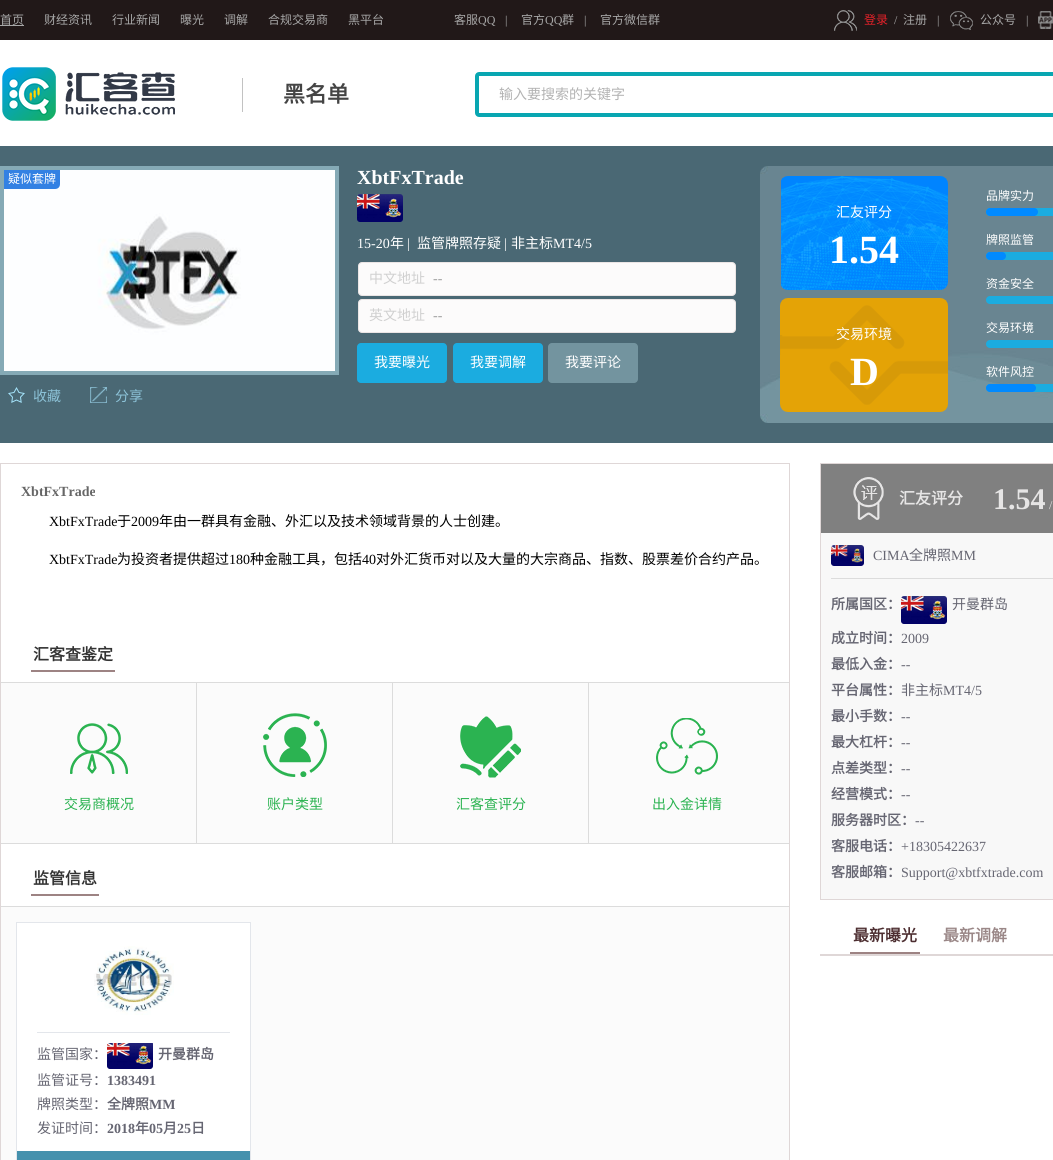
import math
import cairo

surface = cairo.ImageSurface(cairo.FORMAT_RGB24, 1053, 1160)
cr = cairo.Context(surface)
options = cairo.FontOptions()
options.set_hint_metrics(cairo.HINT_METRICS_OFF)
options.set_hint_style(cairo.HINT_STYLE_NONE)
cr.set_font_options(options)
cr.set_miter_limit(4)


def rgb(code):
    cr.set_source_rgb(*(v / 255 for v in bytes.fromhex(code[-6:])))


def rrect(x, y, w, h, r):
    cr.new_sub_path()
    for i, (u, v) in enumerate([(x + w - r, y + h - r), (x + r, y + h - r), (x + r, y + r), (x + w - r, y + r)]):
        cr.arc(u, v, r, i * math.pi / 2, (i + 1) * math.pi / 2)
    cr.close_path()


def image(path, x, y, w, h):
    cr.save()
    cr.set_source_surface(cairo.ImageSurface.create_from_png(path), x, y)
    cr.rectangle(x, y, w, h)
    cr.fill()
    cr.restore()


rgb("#ffffff")
cr.paint()
rgb("#211818")
cr.rectangle(0, 0, 1053, 40)
cr.fill()
rgb("#a7a7a7")
cr.rectangle(0, 25, 24, 1)
cr.fill()
image("img/1.png", 834, 10, 23, 21)
image("img/2.png", 950, 11, 23, 19)
image("img/3.png", 1038, 11, 15, 18)
image("img/4.png", 2, 67, 173, 54)
rgb("#c2c2c2")
cr.rectangle(242, 78, 1, 34)
cr.fill()
cr.new_path()
cr.move_to(479, 74)
cr.line_to(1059, 74)
cr.line_to(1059, 115)
cr.line_to(479, 115)
cr.curve_to(478, 115, 477, 114, 477, 113)
cr.line_to(477, 76)
cr.curve_to(477, 75, 478, 74, 479, 74)
cr.close_path()
rgb("#08a6b1")
cr.set_line_width(4)
cr.stroke()
rgb("#4a6874")
cr.rectangle(0, 146, 1053, 297)
cr.fill()
cr.rectangle(2, 168, 335, 205)
rgb("#85aab6")
cr.stroke()
image("img/5.png", 4, 170, 331, 201)
rgb("#3381e3")
cr.new_path()
cr.move_to(4, 170)
cr.line_to(60, 170)
cr.line_to(60, 184)
cr.curve_to(60, 187, 58, 189, 55, 189)
cr.line_to(4, 189)
cr.close_path()
cr.fill()
image("img/6.png", 8, 387, 17, 16)
image("img/7.png", 90, 387, 17, 16)
image("img/8.png", 357, 194, 46, 28)
rgb("#fcfbfb")
rrect(358.5, 262.5, 377, 33, 3.5)
cr.fill_preserve()
rgb("#ebe5e5")
cr.set_line_width(1)
cr.stroke()
rgb("#fcfbfb")
rrect(358.5, 299.5, 377, 33, 3.5)
cr.fill_preserve()
rgb("#ebe5e5")
cr.stroke()
rgb("#1bace0")
rrect(357, 343, 90, 40, 4)
cr.fill()
rrect(453, 343, 90, 40, 4)
cr.fill()
rgb("#73949f")
rrect(548, 343, 90, 40, 4)
cr.fill()
image("img/9.png", 760, 166, 293, 257)
image("img/10.png", 781, 176, 167, 114)
image("img/11.png", 780, 298, 168, 114)
rgb("#1bace0")
rrect(986, 208, 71, 8, 4)
cr.fill()
rgb("#018aff")
rrect(986, 208, 52, 8, 4)
cr.fill()
rgb("#1bace0")
rrect(986, 252, 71, 8, 4)
cr.fill()
rgb("#018aff")
rrect(986, 252, 20, 8, 4)
cr.fill()
rgb("#1bace0")
rrect(986, 296, 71, 8, 4)
cr.fill()
rrect(986, 340, 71, 8, 4)
cr.fill()
rrect(986, 384, 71, 8, 4)
cr.fill()
rgb("#018aff")
rrect(986, 384, 50, 8, 4)
cr.fill()
cr.rectangle(0.5, 463.5, 789, 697)
rgb("#dfd7d7")
cr.stroke()
for x, y, w, h, color in [
    (31, 670, 84, 2, "#9d8383"),
    (1, 683, 788, 160, "#fbfbfb"),
    (1, 682, 788, 1, "#dcdcdc"),
    (1, 843, 788, 1, "#dcdcdc"),
    (196, 683, 1, 160, "#dcdcdc"),
]:
    rgb(color)
    cr.rectangle(x, y, w, h)
    cr.fill()
image("img/12.png", 70, 723, 58, 51)
cr.rectangle(392, 683, 1, 160)
cr.fill()
image("img/13.png", 263, 713, 64, 64)
cr.rectangle(588, 683, 1, 160)
cr.fill()
image("img/14.png", 460, 716, 61, 62)
image("img/15.png", 656, 718, 62, 57)
for x, y, w, h, color in [
    (31, 894, 68, 2, "#9d8383"),
    (1, 907, 788, 253, "#fbfbfb"),
    (1, 906, 788, 1, "#dcdcdc"),
    (17, 923, 233, 228, "#ffffff"),
]:
    rgb(color)
    cr.rectangle(x, y, w, h)
    cr.fill()
cr.rectangle(16.5, 922.5, 234, 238)
rgb("#e3e6eb")
cr.stroke()
cr.rectangle(37, 1032, 193, 1)
cr.fill()
image("img/16.png", 94, 946, 80, 69)
image("img/17.png", 107, 1043, 46, 26)
rgb("#4591ad")
cr.rectangle(17, 1151, 233, 9)
cr.fill()
rgb("#f8f8f8")
cr.rectangle(821, 533, 232, 366)
cr.fill()
cr.rectangle(820.5, 463.5, 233, 436)
rgb("#dfd7d7")
cr.stroke()
rgb("#808080")
cr.rectangle(821, 464, 232, 69)
cr.fill()
image("img/18.png", 853, 477, 31, 43)
rgb("#dcdcdc")
cr.rectangle(831, 578, 222, 1)
cr.fill()
image("img/19.png", 831, 545, 33, 21)
image("img/20.png", 901, 596, 46, 28)
rgb("#9d8383")
cr.rectangle(850, 952, 70, 2)
cr.fill()
rgb("#dfd7d7")
cr.rectangle(820, 954, 233, 2)
cr.fill()
cr.select_font_face("Noto Sans CJK SC")
cr.set_font_size(12)
rgb("#a7a7a7")
for x, y, s in [
    (0, 24, "首页"),
    (44, 24, "财经资讯"),
    (112, 24, "行业新闻"),
    (180, 24, "曝光"),
    (224, 24, "调解"),
    (268, 24, "合规交易商"),
    (348, 24, "黑平台"),
    (454, 24, "客服"),
]:
    cr.move_to(x, y)
    cr.show_text(s)
cr.select_font_face("Liberation Serif")
cr.move_to(478, 24)
cr.show_text("QQ")
cr.move_to(505, 24)
cr.show_text("|")
cr.select_font_face("Noto Sans CJK SC")
cr.move_to(521, 24)
cr.show_text("官方")
cr.select_font_face("Liberation Serif")
cr.move_to(545, 24)
cr.show_text("QQ")
cr.select_font_face("Noto Sans CJK SC")
cr.move_to(562, 24)
cr.show_text("群")
cr.select_font_face("Liberation Serif")
cr.move_to(584, 24)
cr.show_text("|")
cr.select_font_face("Noto Sans CJK SC")
cr.move_to(600, 24)
cr.show_text("官方微信群")
rgb("#e62129")
cr.move_to(864, 24)
cr.show_text("登录")
cr.select_font_face("Liberation Serif")
rgb("#a7a7a7")
cr.move_to(894, 24)
cr.show_text("/")
cr.select_font_face("Noto Sans CJK SC")
cr.move_to(903, 24)
cr.show_text("注册")
cr.select_font_face("Liberation Serif")
cr.move_to(937, 24)
cr.show_text("|")
cr.select_font_face("Noto Sans CJK SC")
cr.move_to(980, 24)
cr.show_text("公众号")
cr.select_font_face("Liberation Serif")
cr.move_to(1026, 24)
cr.show_text("|")
cr.select_font_face("Noto Sans CJK SC", cairo.FONT_SLANT_NORMAL, cairo.FONT_WEIGHT_BOLD)
cr.set_font_size(22)
rgb("#444444")
cr.move_to(283, 102)
cr.show_text("黑名单")
cr.select_font_face("Noto Sans CJK SC")
cr.set_font_size(14)
rgb("#b2b2b2")
cr.move_to(499, 99)
cr.show_text("输入要搜索的关键字")
cr.set_font_size(12)
rgb("#ffffff")
cr.move_to(8, 183)
cr.show_text("疑似套牌")
cr.set_font_size(14)
rgb("#8cc2d7")
cr.move_to(33, 401)
cr.show_text("收藏")
cr.move_to(115, 401)
cr.show_text("分享")
cr.select_font_face("Liberation Serif", cairo.FONT_SLANT_NORMAL, cairo.FONT_WEIGHT_BOLD)
cr.set_font_size(20)
rgb("#ffffff")
cr.move_to(357, 184)
cr.show_text("XbtFxTrade")
cr.select_font_face("Liberation Serif")
cr.set_font_size(14)
cr.move_to(357, 248)
cr.show_text("15-20")
cr.select_font_face("Noto Sans CJK SC")
cr.move_to(390, 248)
cr.show_text("年")
cr.select_font_face("Liberation Serif")
cr.move_to(407, 248)
cr.show_text("|")
cr.select_font_face("Noto Sans CJK SC")
cr.move_to(417, 248)
cr.show_text("监管牌照存疑")
cr.select_font_face("Liberation Serif")
cr.move_to(504, 248)
cr.show_text("|")
cr.select_font_face("Noto Sans CJK SC")
cr.move_to(511, 248)
cr.show_text("非主标")
cr.select_font_face("Liberation Serif")
cr.move_to(553, 248)
cr.show_text("MT4/5")
cr.select_font_face("Noto Sans CJK SC")
rgb("#d0d0d0")
cr.move_to(369, 283)
cr.show_text("中文地址")
cr.select_font_face("Liberation Serif")
rgb("#9e9e9e")
cr.move_to(433, 283)
cr.show_text("--")
cr.select_font_face("Noto Sans CJK SC")
rgb("#d0d0d0")
cr.move_to(369, 320)
cr.show_text("英文地址")
cr.select_font_face("Liberation Serif")
rgb("#9e9e9e")
cr.move_to(433, 320)
cr.show_text("--")
cr.select_font_face("Noto Sans CJK SC")
rgb("#ffffff")
for x, y, s in [
    (374, 367, "我要曝光"),
    (470, 367, "我要调解"),
    (565, 367, "我要评论"),
    (836, 217, "汇友评分"),
]:
    cr.move_to(x, y)
    cr.show_text(s)
cr.select_font_face("Liberation Serif", cairo.FONT_SLANT_NORMAL, cairo.FONT_WEIGHT_BOLD)
cr.set_font_size(40)
cr.move_to(829, 263)
cr.show_text("1.54")
cr.select_font_face("Noto Sans CJK SC")
cr.set_font_size(14)
cr.move_to(836, 339)
cr.show_text("交易环境")
cr.select_font_face("Liberation Serif", cairo.FONT_SLANT_NORMAL, cairo.FONT_WEIGHT_BOLD)
cr.set_font_size(40)
cr.move_to(850, 385)
cr.show_text("D")
cr.select_font_face("Noto Sans CJK SC")
cr.set_font_size(12)
for x, y, s in [
    (986, 200, "品牌实力"),
    (986, 244, "牌照监管"),
    (986, 288, "资金安全"),
    (986, 332, "交易环境"),
    (986, 376, "软件风控"),
]:
    cr.move_to(x, y)
    cr.show_text(s)
cr.select_font_face("Liberation Serif", cairo.FONT_SLANT_NORMAL, cairo.FONT_WEIGHT_BOLD)
cr.set_font_size(14)
rgb("#666666")
cr.move_to(21, 496)
cr.show_text("XbtFxTrade")
cr.select_font_face("Liberation Serif")
rgb("#000000")
cr.move_to(49, 526)
cr.show_text("XbtFxTrade")
cr.select_font_face("Noto Sans CJK SC")
cr.move_to(117, 526)
cr.show_text("于")
cr.select_font_face("Liberation Serif")
cr.move_to(131, 526)
cr.show_text("2009")
cr.select_font_face("Noto Sans CJK SC")
cr.move_to(159, 526)
cr.show_text("年由一群具有金融、外汇以及技术领域背景的人士创建。")
cr.select_font_face("Liberation Serif")
cr.move_to(49, 564)
cr.show_text("XbtFxTrade")
cr.select_font_face("Noto Sans CJK SC")
cr.move_to(117, 564)
cr.show_text("为投资者提供超过")
cr.select_font_face("Liberation Serif")
cr.move_to(229, 564)
cr.show_text("180")
cr.select_font_face("Noto Sans CJK SC")
cr.move_to(250, 564)
cr.show_text("种金融工具，包括")
cr.select_font_face("Liberation Serif")
cr.move_to(362, 564)
cr.show_text("40")
cr.select_font_face("Noto Sans CJK SC")
cr.move_to(376, 564)
cr.show_text("对外汇货币对以及大量的大宗商品、指数、股票差价合约产品。")
cr.select_font_face("Noto Sans CJK SC", cairo.FONT_SLANT_NORMAL, cairo.FONT_WEIGHT_BOLD)
cr.set_font_size(16)
rgb("#333333")
cr.move_to(33, 660)
cr.show_text("汇客查鉴定")
cr.select_font_face("Noto Sans CJK SC")
cr.set_font_size(14)
rgb("#2bb351")
for x, y, s in [
    (64, 809, "交易商概况"),
    (267, 809, "账户类型"),
    (456, 809, "汇客查评分"),
    (652, 809, "出入金详情"),
]:
    cr.move_to(x, y)
    cr.show_text(s)
cr.select_font_face("Noto Sans CJK SC", cairo.FONT_SLANT_NORMAL, cairo.FONT_WEIGHT_BOLD)
cr.set_font_size(16)
rgb("#333333")
cr.move_to(33, 884)
cr.show_text("监管信息")
cr.select_font_face("Noto Sans CJK SC")
cr.set_font_size(14)
rgb("#666672")
cr.move_to(37, 1059)
cr.show_text("监管国家：")
cr.select_font_face("Noto Sans CJK SC", cairo.FONT_SLANT_NORMAL, cairo.FONT_WEIGHT_BOLD)
cr.move_to(158, 1059)
cr.show_text("开曼群岛")
cr.select_font_face("Noto Sans CJK SC")
cr.move_to(37, 1085)
cr.show_text("监管证号：")
cr.select_font_face("Liberation Serif", cairo.FONT_SLANT_NORMAL, cairo.FONT_WEIGHT_BOLD)
cr.move_to(107, 1085)
cr.show_text("1383491")
cr.select_font_face("Noto Sans CJK SC")
cr.move_to(37, 1109)
cr.show_text("牌照类型：")
cr.select_font_face("Noto Sans CJK SC", cairo.FONT_SLANT_NORMAL, cairo.FONT_WEIGHT_BOLD)
cr.move_to(107, 1109)
cr.show_text("全牌照")
cr.select_font_face("Liberation Serif", cairo.FONT_SLANT_NORMAL, cairo.FONT_WEIGHT_BOLD)
cr.move_to(149, 1109)
cr.show_text("MM")
cr.select_font_face("Noto Sans CJK SC")
cr.move_to(37, 1133)
cr.show_text("发证时间：")
cr.select_font_face("Liberation Serif", cairo.FONT_SLANT_NORMAL, cairo.FONT_WEIGHT_BOLD)
cr.move_to(107, 1133)
cr.show_text("2018")
cr.select_font_face("Noto Sans CJK SC", cairo.FONT_SLANT_NORMAL, cairo.FONT_WEIGHT_BOLD)
cr.move_to(135, 1133)
cr.show_text("年")
cr.select_font_face("Liberation Serif", cairo.FONT_SLANT_NORMAL, cairo.FONT_WEIGHT_BOLD)
cr.move_to(149, 1133)
cr.show_text("05")
cr.select_font_face("Noto Sans CJK SC", cairo.FONT_SLANT_NORMAL, cairo.FONT_WEIGHT_BOLD)
cr.move_to(163, 1133)
cr.show_text("月")
cr.select_font_face("Liberation Serif", cairo.FONT_SLANT_NORMAL, cairo.FONT_WEIGHT_BOLD)
cr.move_to(177, 1133)
cr.show_text("25")
cr.select_font_face("Noto Sans CJK SC", cairo.FONT_SLANT_NORMAL, cairo.FONT_WEIGHT_BOLD)
cr.move_to(191, 1133)
cr.show_text("日")
cr.set_font_size(16)
rgb("#e6e5e5")
cr.move_to(899, 504)
cr.show_text("汇友评分")
cr.select_font_face("Liberation Serif", cairo.FONT_SLANT_NORMAL, cairo.FONT_WEIGHT_BOLD)
cr.set_font_size(30)
cr.move_to(993, 509)
cr.show_text("1.54")
cr.select_font_face("Liberation Serif")
cr.set_font_size(12)
cr.move_to(1049, 509)
cr.show_text("/")
cr.set_font_size(14)
rgb("#666672")
cr.move_to(873, 560)
cr.show_text("CIMA")
cr.select_font_face("Noto Sans CJK SC")
cr.move_to(909, 560)
cr.show_text("全牌照")
cr.select_font_face("Liberation Serif")
cr.move_to(951, 560)
cr.show_text("MM")
cr.select_font_face("Noto Sans CJK SC", cairo.FONT_SLANT_NORMAL, cairo.FONT_WEIGHT_BOLD)
cr.move_to(831, 609)
cr.show_text("所属国区：")
cr.select_font_face("Noto Sans CJK SC")
cr.move_to(952, 609)
cr.show_text("开曼群岛")
cr.select_font_face("Noto Sans CJK SC", cairo.FONT_SLANT_NORMAL, cairo.FONT_WEIGHT_BOLD)
cr.move_to(831, 643)
cr.show_text("成立时间：")
cr.select_font_face("Liberation Serif")
cr.move_to(901, 643)
cr.show_text("2009")
cr.select_font_face("Noto Sans CJK SC", cairo.FONT_SLANT_NORMAL, cairo.FONT_WEIGHT_BOLD)
cr.move_to(831, 669)
cr.show_text("最低入金：")
cr.select_font_face("Liberation Serif")
cr.move_to(901, 669)
cr.show_text("--")
cr.select_font_face("Noto Sans CJK SC", cairo.FONT_SLANT_NORMAL, cairo.FONT_WEIGHT_BOLD)
cr.move_to(831, 695)
cr.show_text("平台属性：")
cr.select_font_face("Noto Sans CJK SC")
cr.move_to(901, 695)
cr.show_text("非主标")
cr.select_font_face("Liberation Serif")
cr.move_to(943, 695)
cr.show_text("MT4/5")
cr.select_font_face("Noto Sans CJK SC", cairo.FONT_SLANT_NORMAL, cairo.FONT_WEIGHT_BOLD)
cr.move_to(831, 721)
cr.show_text("最小手数：")
cr.select_font_face("Liberation Serif")
cr.move_to(901, 721)
cr.show_text("--")
cr.select_font_face("Noto Sans CJK SC", cairo.FONT_SLANT_NORMAL, cairo.FONT_WEIGHT_BOLD)
cr.move_to(831, 747)
cr.show_text("最大杠杆：")
cr.select_font_face("Liberation Serif")
cr.move_to(901, 747)
cr.show_text("--")
cr.select_font_face("Noto Sans CJK SC", cairo.FONT_SLANT_NORMAL, cairo.FONT_WEIGHT_BOLD)
cr.move_to(831, 773)
cr.show_text("点差类型：")
cr.select_font_face("Liberation Serif")
cr.move_to(901, 773)
cr.show_text("--")
cr.select_font_face("Noto Sans CJK SC", cairo.FONT_SLANT_NORMAL, cairo.FONT_WEIGHT_BOLD)
cr.move_to(831, 799)
cr.show_text("经营模式：")
cr.select_font_face("Liberation Serif")
cr.move_to(901, 799)
cr.show_text("--")
cr.select_font_face("Noto Sans CJK SC", cairo.FONT_SLANT_NORMAL, cairo.FONT_WEIGHT_BOLD)
cr.move_to(831, 825)
cr.show_text("服务器时区：")
cr.select_font_face("Liberation Serif")
cr.move_to(915, 825)
cr.show_text("--")
cr.select_font_face("Noto Sans CJK SC", cairo.FONT_SLANT_NORMAL, cairo.FONT_WEIGHT_BOLD)
cr.move_to(831, 851)
cr.show_text("客服电话：")
cr.select_font_face("Liberation Serif")
cr.move_to(901, 851)
cr.show_text("+18305422637")
cr.select_font_face("Noto Sans CJK SC", cairo.FONT_SLANT_NORMAL, cairo.FONT_WEIGHT_BOLD)
cr.move_to(831, 877)
cr.show_text("客服邮箱：")
cr.select_font_face("Liberation Serif")
cr.move_to(901, 877)
cr.show_text("Support@xbtfxtrade.com")
cr.select_font_face("Noto Sans CJK SC", cairo.FONT_SLANT_NORMAL, cairo.FONT_WEIGHT_BOLD)
cr.set_font_size(16)
rgb("#4d2e31")
cr.move_to(853, 941)
cr.show_text("最新曝光")
rgb("#9a8787")
cr.move_to(943, 941)
cr.show_text("最新调解")
surface.write_to_png("page.png")
